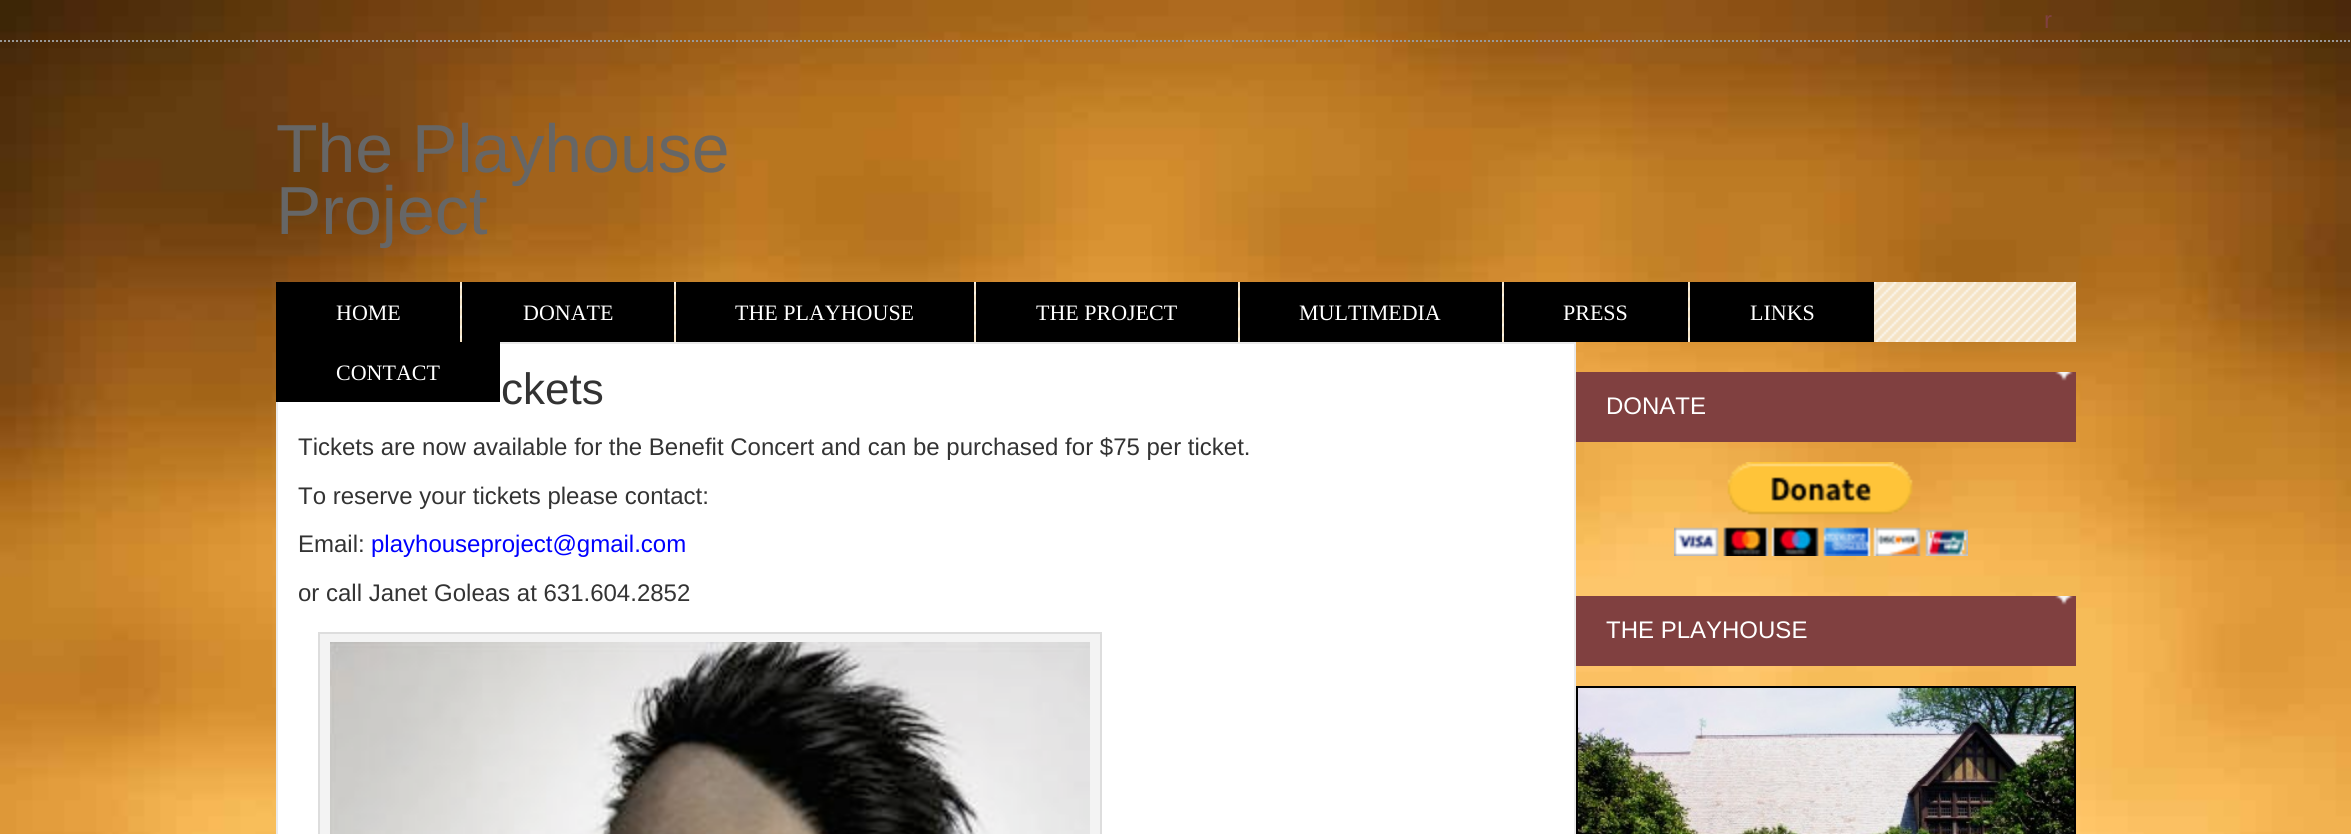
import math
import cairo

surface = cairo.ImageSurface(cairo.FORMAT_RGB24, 2351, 834)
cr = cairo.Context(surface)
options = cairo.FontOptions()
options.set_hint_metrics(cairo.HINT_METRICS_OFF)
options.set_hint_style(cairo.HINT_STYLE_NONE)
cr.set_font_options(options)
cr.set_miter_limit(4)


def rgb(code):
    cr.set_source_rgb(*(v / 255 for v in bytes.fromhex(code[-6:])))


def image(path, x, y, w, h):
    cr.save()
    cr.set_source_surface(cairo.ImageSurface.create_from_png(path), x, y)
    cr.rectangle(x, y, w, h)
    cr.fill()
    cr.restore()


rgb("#ffffff")
cr.paint()
image("img/1.png", 0, 0, 2351, 834)
cr.new_path()
cr.move_to(0, 41)
cr.line_to(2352, 41)
rgb("#999999")
cr.set_dash([2, 2])
cr.stroke()
image("img/2.png", 460, 282, 1616, 60)
for x, y, w, h, color in [
    (276, 282, 184, 60, "#000000"),
    (462, 282, 212, 60, "#000000"),
    (676, 282, 298, 60, "#000000"),
    (976, 282, 262, 60, "#000000"),
    (1240, 282, 262, 60, "#000000"),
    (1504, 282, 184, 60, "#000000"),
    (1690, 282, 184, 60, "#000000"),
]:
    rgb(color)
    cr.rectangle(x, y, w, h)
    cr.fill()
rgb("#ffffff")
cr.rectangle(277, 343, 1298, 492)
cr.fill_preserve()
rgb("#eaeaea")
cr.set_dash([])
cr.stroke()
rgb("#000000")
cr.rectangle(276, 342, 224, 60)
cr.fill()
rgb("#f3f3f3")
cr.rectangle(319, 633, 782, 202)
cr.fill_preserve()
rgb("#dddddd")
cr.stroke()
image("img/3.png", 330, 642, 760, 192)
image("img/4.png", 1576, 372, 500, 70)
image("img/5.png", 1674, 462, 294, 94)
image("img/4.png", 1576, 596, 500, 70)
cr.rectangle(1577, 687, 498, 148)
rgb("#000000")
cr.stroke()
image("img/6.png", 1578, 688, 496, 146)
cr.select_font_face("Liberation Sans")
cr.set_font_size(24)
rgb("#804040")
cr.move_to(2044, 28)
cr.show_text("r")
cr.set_font_size(68)
rgb("#666666")
cr.move_to(276, 172)
cr.show_text("The Playhouse")
cr.move_to(276, 234)
cr.show_text("Project")
cr.select_font_face("Liberation Serif")
cr.set_font_size(22)
rgb("#ffffff")
for x, y, s in [
    (336, 320, "HOME"),
    (523, 320, "DONATE"),
    (735, 320, "THE PLAYHOUSE"),
    (1036, 320, "THE PROJECT"),
    (1299, 320, "MULTIMEDIA"),
    (1563, 320, "PRESS"),
    (1750, 320, "LINKS"),
    (336, 380, "CONTACT"),
]:
    cr.move_to(x, y)
    cr.show_text(s)
cr.select_font_face("Liberation Sans")
cr.set_font_size(44)
rgb("#333333")
cr.move_to(501, 404)
cr.show_text("ckets")
cr.set_font_size(24)
for x, y, s in [
    (298, 455, "Tickets are now available for the Benefit Concert and can be purchased for $75 per ticket."),
    (298, 504, "To reserve your tickets please contact:"),
    (298, 552, "Email:"),
]:
    cr.move_to(x, y)
    cr.show_text(s)
rgb("#0000ff")
cr.move_to(371, 552)
cr.show_text("playhouseproject@gmail.com")
rgb("#333333")
cr.move_to(298, 601)
cr.show_text("or call Janet Goleas at 631.604.2852")
rgb("#ffffff")
cr.move_to(1606, 414)
cr.show_text("DONATE")
cr.move_to(1606, 638)
cr.show_text("THE PLAYHOUSE")
surface.write_to_png("page.png")
